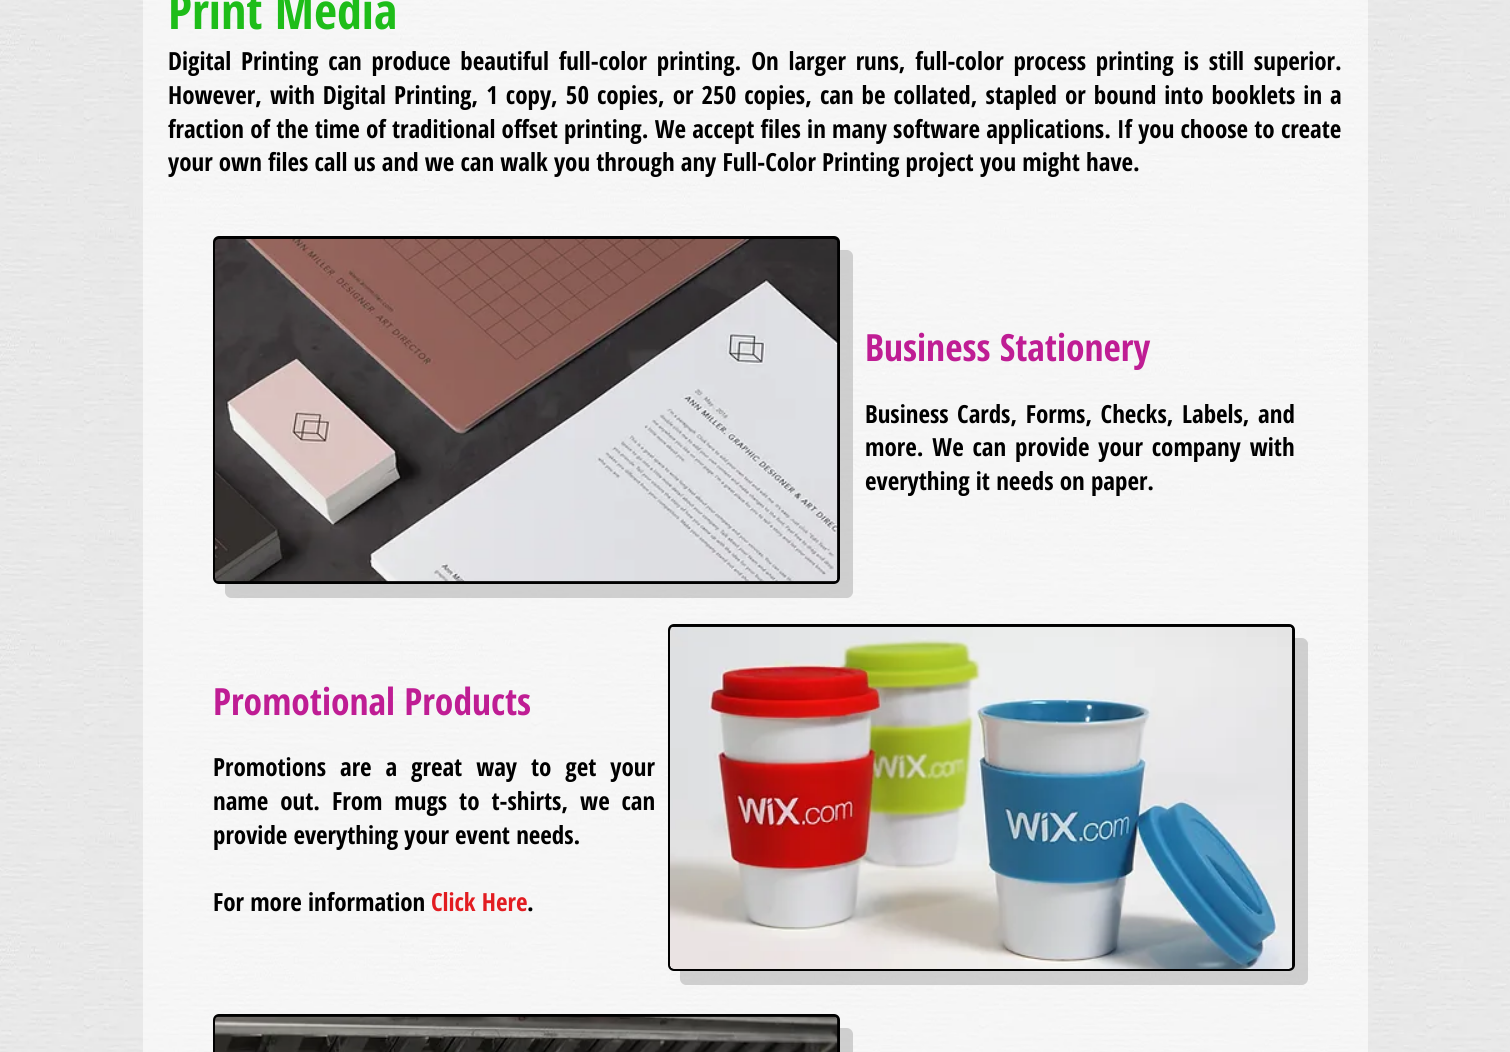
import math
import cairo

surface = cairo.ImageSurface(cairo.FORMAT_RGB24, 1510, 1052)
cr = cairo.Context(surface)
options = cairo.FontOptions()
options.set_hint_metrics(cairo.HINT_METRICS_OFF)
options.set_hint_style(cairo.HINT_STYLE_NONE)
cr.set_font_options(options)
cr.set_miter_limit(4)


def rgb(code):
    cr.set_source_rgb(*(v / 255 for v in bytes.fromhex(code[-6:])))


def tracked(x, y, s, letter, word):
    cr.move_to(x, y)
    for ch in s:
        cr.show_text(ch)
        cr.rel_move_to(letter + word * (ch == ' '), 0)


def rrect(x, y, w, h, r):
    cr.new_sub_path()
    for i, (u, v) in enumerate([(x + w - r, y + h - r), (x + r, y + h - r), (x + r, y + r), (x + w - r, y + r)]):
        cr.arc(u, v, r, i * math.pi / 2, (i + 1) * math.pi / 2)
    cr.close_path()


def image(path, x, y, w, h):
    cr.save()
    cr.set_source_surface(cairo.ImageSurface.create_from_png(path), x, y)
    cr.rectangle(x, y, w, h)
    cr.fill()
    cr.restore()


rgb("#ffffff")
cr.paint()
image("img/1.png", 0, 0, 1510, 1052)
cr.set_source_rgba(1, 1, 1, 0.6)
cr.rectangle(143, 0, 1225, 1052)
cr.fill()
cr.set_source_rgba(0.663, 0.663, 0.663, 0.5)
cr.new_path()
cr.move_to(225, 584)
cr.line_to(225, 592)
cr.curve_to(225, 595, 228, 598, 231, 598)
cr.line_to(847, 598)
cr.curve_to(850, 598, 853, 595, 853, 592)
cr.line_to(853, 256)
cr.curve_to(853, 253, 850, 250, 847, 250)
cr.line_to(840, 250)
cr.line_to(840, 578)
cr.curve_to(840, 581, 837, 584, 834, 584)
cr.close_path()
cr.fill()
rgb("#000000")
rrect(214.5, 237.5, 624, 345, 4.5)
cr.fill_preserve()
cr.set_line_width(3)
cr.stroke()
image("img/2.png", 215, 239, 623, 343)
cr.set_source_rgba(0.663, 0.663, 0.663, 0.5)
cr.new_path()
cr.move_to(680, 971)
cr.line_to(680, 979)
cr.curve_to(680, 982, 683, 985, 686, 985)
cr.line_to(1302, 985)
cr.curve_to(1305, 985, 1308, 982, 1308, 979)
cr.line_to(1308, 644)
cr.curve_to(1308, 641, 1305, 638, 1302, 638)
cr.line_to(1295, 638)
cr.line_to(1295, 965)
cr.curve_to(1295, 968, 1292, 971, 1289, 971)
cr.close_path()
cr.fill()
rrect(669.5, 625.5, 624, 344, 4.5)
rgb("#000000")
cr.stroke()
image("img/3.png", 670, 626, 623, 343)
cr.set_source_rgba(0.663, 0.663, 0.663, 0.5)
cr.new_path()
cr.move_to(225, 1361)
cr.line_to(225, 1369)
cr.curve_to(225, 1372, 228, 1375, 231, 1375)
cr.line_to(847, 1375)
cr.curve_to(850, 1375, 853, 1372, 853, 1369)
cr.line_to(853, 1034)
cr.curve_to(853, 1031, 850, 1028, 847, 1028)
cr.line_to(840, 1028)
cr.line_to(840, 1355)
cr.curve_to(840, 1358, 837, 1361, 834, 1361)
cr.close_path()
cr.fill()
rrect(214.5, 1015.5, 624, 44, 4.5)
rgb("#000000")
cr.stroke()
image("img/4.png", 215, 1016, 623, 36)
cr.select_font_face("Open Sans Condensed", cairo.FONT_SLANT_NORMAL, cairo.FONT_WEIGHT_BOLD)
cr.set_font_size(50)
rgb("#1ebd19")
cr.move_to(168, 29)
cr.show_text("Print Media")
cr.set_font_size(25)
rgb("#000000")
tracked(168, 70, "Digital Printing can produce beautiful full-color printing. On larger runs, full-color process printing is still superior.", 0, 3.6)
tracked(168, 104, "However, with Digital Printing, 1 copy, 50 copies, or 250 copies, can be collated, stapled or bound into booklets in a", 0, 1.85)
cr.move_to(168, 138)
cr.show_text("fraction of the time of traditional offset printing. We accept files in many software applications. If you choose to create")
cr.move_to(168, 171)
cr.show_text("your own files call us and we can walk you through any Full-Color Printing project you might have.")
cr.set_font_size(37.5)
rgb("#bf1d94")
cr.move_to(865, 361)
cr.show_text("Business Stationery")
cr.set_font_size(25)
rgb("#000000")
tracked(865, 423, "Business Cards, Forms, Checks, Labels, and", 0, 2.25)
tracked(865, 456, "more. We can provide your company with", 0, 2.75)
cr.move_to(865, 490)
cr.show_text("everything it needs on paper.")
cr.set_font_size(37.5)
rgb("#bf1d94")
cr.move_to(213, 715)
cr.show_text("Promotional Products")
cr.set_font_size(25)
rgb("#000000")
tracked(213, 776, "Promotions are a great way to get your", 0, 7.75)
tracked(213, 810, "name out. From mugs to t-shirts, we can", 0, 5.75)
cr.move_to(213, 844)
cr.show_text("provide everything your event needs.")
cr.move_to(213, 911)
cr.show_text("For more information")
rgb("#e21c21")
cr.move_to(431, 911)
cr.show_text("Click Here")
rgb("#000000")
cr.move_to(527, 911)
cr.show_text(".")
surface.write_to_png("page.png")
